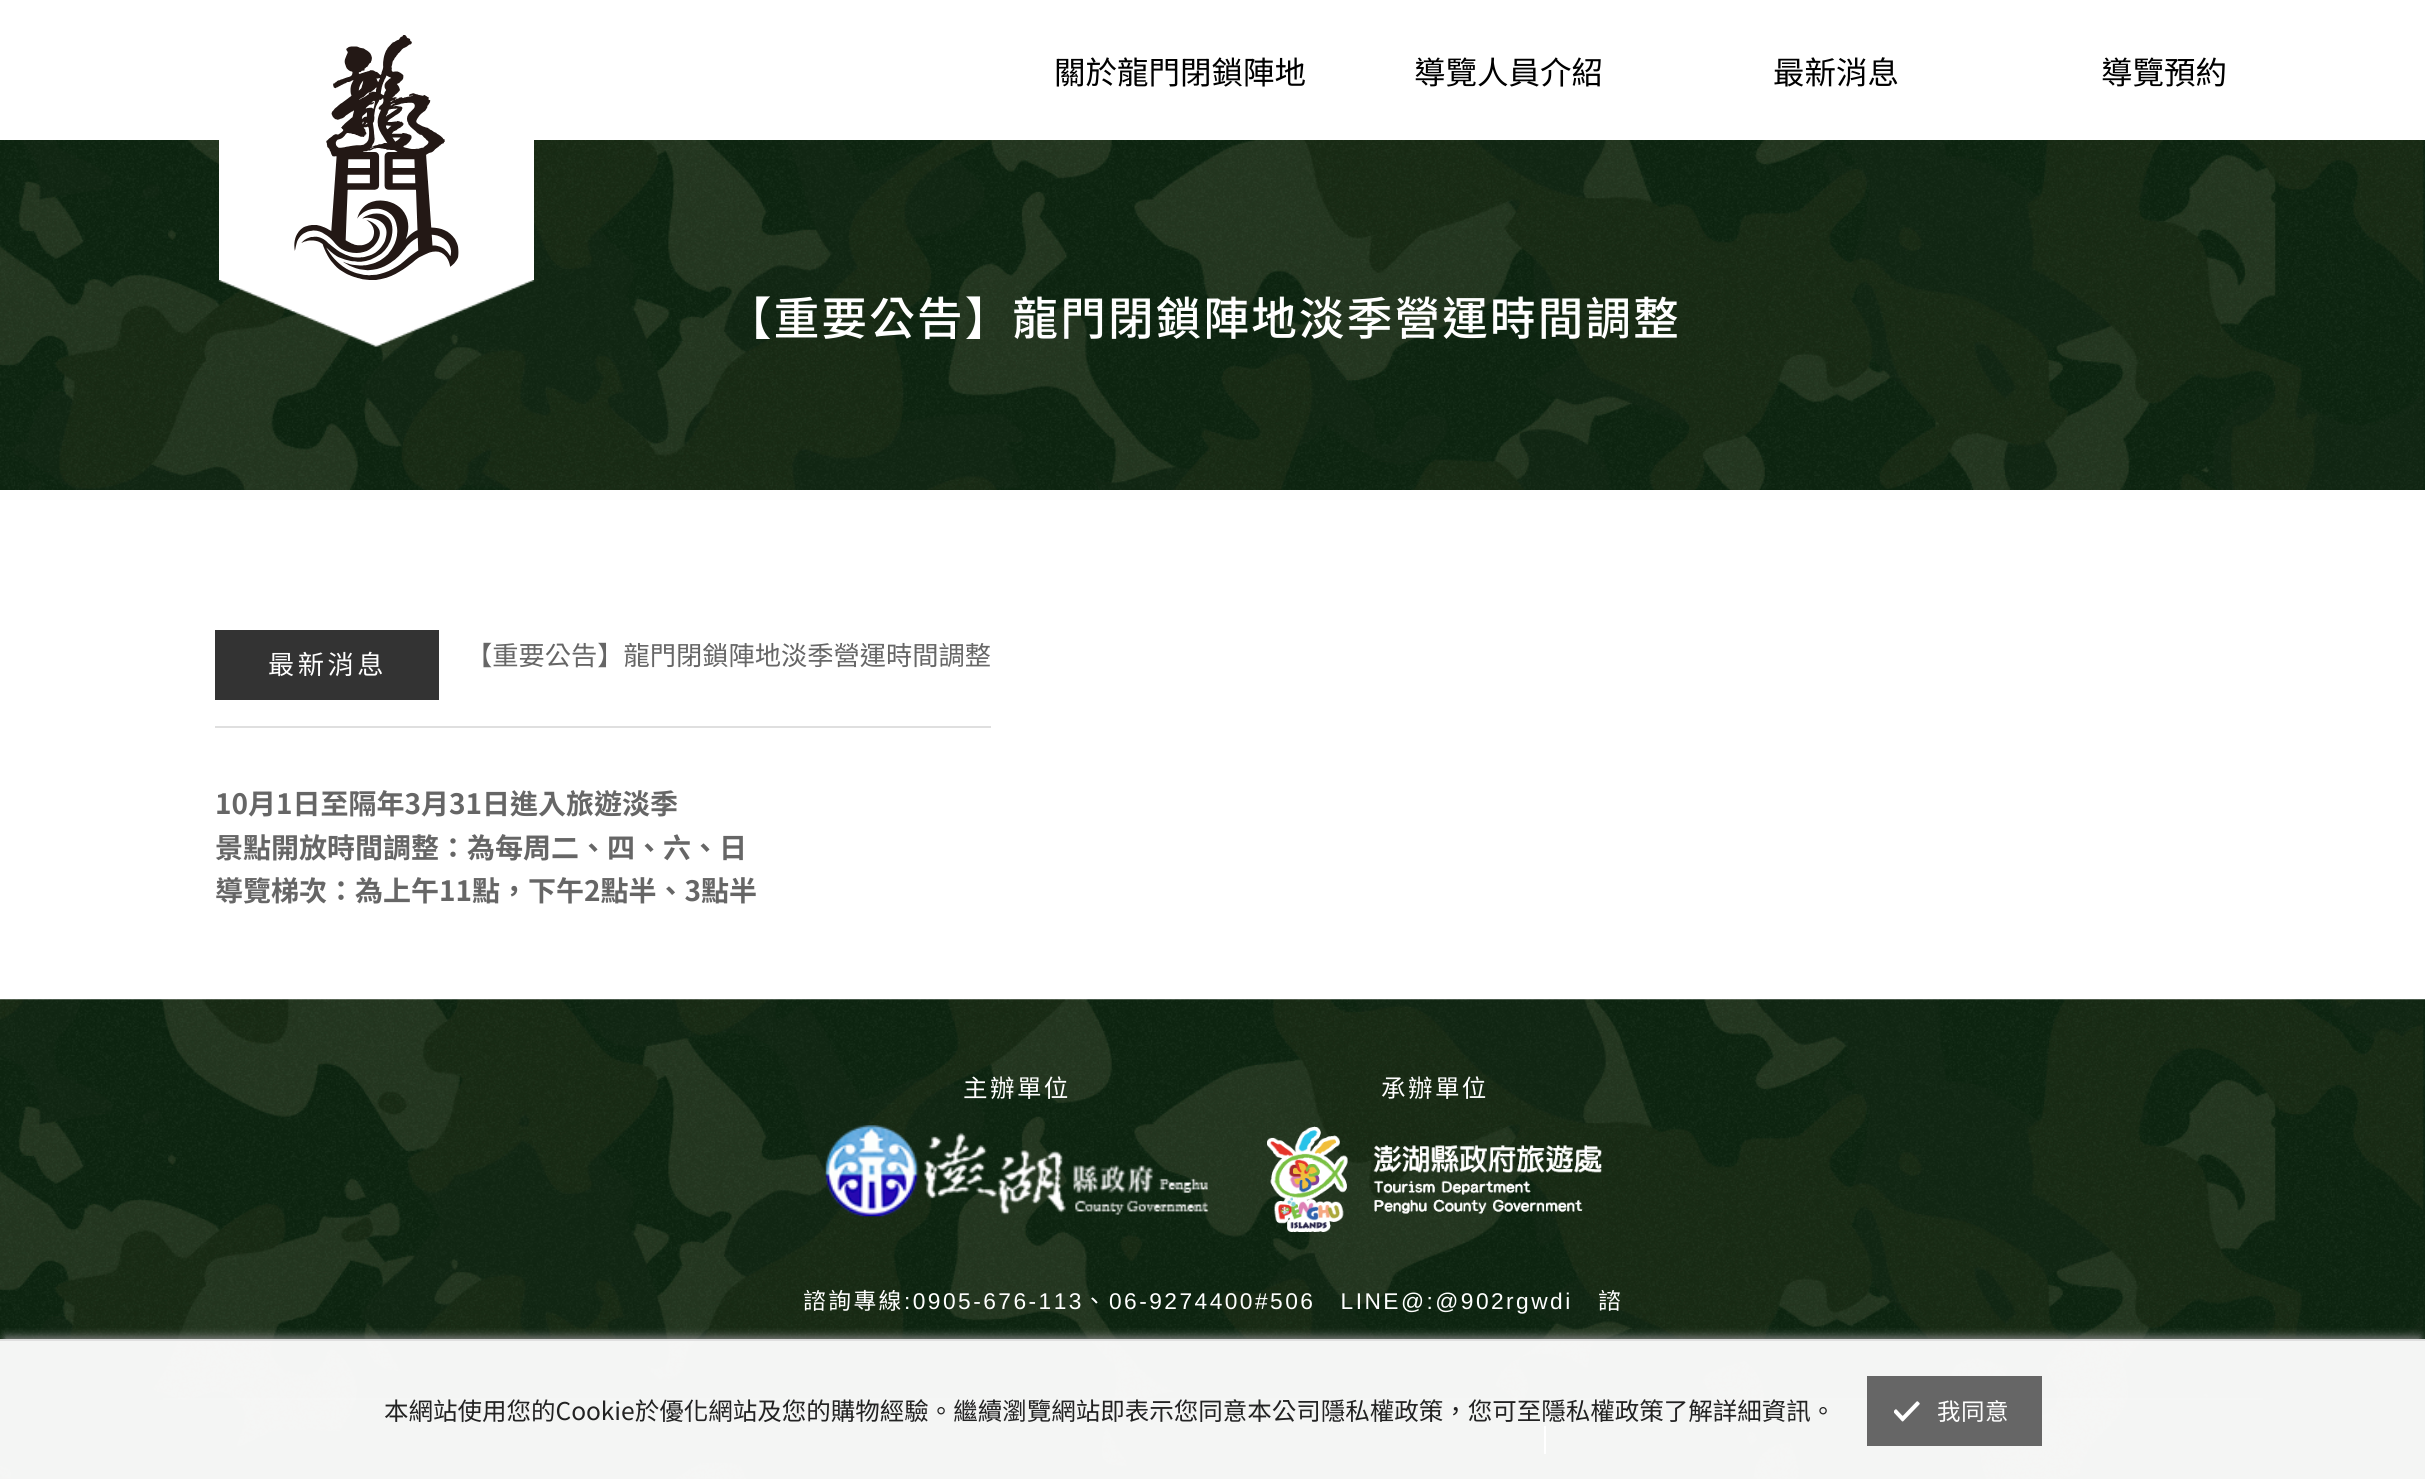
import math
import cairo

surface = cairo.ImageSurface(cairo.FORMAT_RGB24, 2425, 1479)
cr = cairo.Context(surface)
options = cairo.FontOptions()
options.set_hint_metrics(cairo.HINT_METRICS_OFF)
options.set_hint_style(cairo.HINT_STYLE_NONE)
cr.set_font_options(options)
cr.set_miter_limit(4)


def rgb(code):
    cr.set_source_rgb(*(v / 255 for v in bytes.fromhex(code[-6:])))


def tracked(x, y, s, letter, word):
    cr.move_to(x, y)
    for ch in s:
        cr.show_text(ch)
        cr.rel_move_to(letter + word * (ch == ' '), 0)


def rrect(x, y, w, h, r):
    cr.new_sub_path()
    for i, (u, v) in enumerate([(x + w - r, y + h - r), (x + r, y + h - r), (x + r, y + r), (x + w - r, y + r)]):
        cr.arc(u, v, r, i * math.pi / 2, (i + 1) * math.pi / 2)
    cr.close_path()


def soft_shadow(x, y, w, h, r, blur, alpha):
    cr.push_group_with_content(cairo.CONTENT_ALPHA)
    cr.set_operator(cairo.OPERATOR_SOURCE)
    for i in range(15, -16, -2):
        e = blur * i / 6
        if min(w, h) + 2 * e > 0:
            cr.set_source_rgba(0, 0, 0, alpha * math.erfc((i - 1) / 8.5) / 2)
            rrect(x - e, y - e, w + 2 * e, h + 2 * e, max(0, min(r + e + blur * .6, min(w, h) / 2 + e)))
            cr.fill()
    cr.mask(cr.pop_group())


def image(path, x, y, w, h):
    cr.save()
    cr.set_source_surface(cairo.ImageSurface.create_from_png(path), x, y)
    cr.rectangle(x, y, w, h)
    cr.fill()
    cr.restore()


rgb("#ffffff")
cr.paint()
image("img/3.png", 0, 140, 2425, 350)
rgb("#ffffff")
cr.rectangle(219, 140, 315, 140)
cr.fill()
image("img/1.png", 294, 35, 165, 245)
image("img/2.png", 218, 280, 316, 67)
rgb("#dfdfdf")
cr.rectangle(215, 726, 776, 2)
cr.fill()
rgb("#333333")
cr.rectangle(215, 630, 224, 70)
cr.fill()
image("img/4.png", 0, 999, 2425, 480)
image("img/5.png", 825, 1125, 384, 92)
image("img/6.png", 1267, 1126, 335, 106)
cr.set_source_rgba(1, 1, 1, 0.1)
cr.rectangle(163, 1398, 2100, 2)
cr.fill()
rgb("#ffffff")
cr.rectangle(1544, 1426, 2, 28)
cr.fill()
cr.save()
cr.rectangle(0, 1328, 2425, 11)
cr.clip()
rgb("#8a8a8a")
soft_shadow(5, 1337, 2415, 131, 0, 4.5, 1)
cr.restore()
cr.set_source_rgba(1, 1, 1, 0.95)
cr.rectangle(0, 1341, 2425, 138)
cr.fill()
rgb("#dfdfdf")
cr.rectangle(0, 1339, 2425, 2)
cr.fill()
rgb("#666666")
cr.rectangle(1867, 1376, 175, 70)
cr.fill()
image("img/7.png", 1894, 1401, 26, 21)
cr.select_font_face("Noto Sans TC")
cr.set_font_size(31.5)
rgb("#000000")
for x, y, s in [
    (1054, 84, "關於龍門閉鎖陣地"),
    (1414, 84, "導覽人員介紹"),
    (1773, 84, "最新消息"),
    (2101, 84, "導覽預約"),
]:
    cr.move_to(x, y)
    cr.show_text(s)
cr.select_font_face("Noto Sans TC Medium")
cr.set_font_size(45.5)
rgb("#ffffff")
tracked(726, 335, "【重要公告】龍門閉鎖陣地淡季營運時間調整", 2.25, 0)
cr.select_font_face("Noto Sans CJK TC")
cr.set_font_size(26.25)
tracked(268, 674, "最新消息", 3.5, 0)
rgb("#666666")
cr.move_to(466, 665)
cr.show_text("【重要公告】龍門閉鎖陣地淡季營運時間調整")
cr.select_font_face("Noto Sans TC", cairo.FONT_SLANT_NORMAL, cairo.FONT_WEIGHT_BOLD)
cr.set_font_size(28)
for x, y, s in [
    (215, 814, "10月1日至隔年3月31日進入旅遊淡季"),
    (215, 858, "景點開放時間調整：為每周二、四、六、日"),
    (215, 901, "導覽梯次：為上午11點，下午2點半、3點半"),
]:
    cr.move_to(x, y)
    cr.show_text(s)
cr.select_font_face("Noto Sans CJK TC")
cr.set_font_size(24.5)
rgb("#ffffff")
tracked(963, 1097, "主辦單位", 2.45, 0)
tracked(1381, 1097, "承辦單位", 2.45, 0)
cr.set_font_size(22.75)
tracked(803, 1309, "諮詢專線", 2.45, 0)
cr.select_font_face("Liberation Sans")
tracked(904, 1309, ":0905-676-113", 2.45, 0)
cr.select_font_face("Noto Sans CJK TC")
tracked(1083, 1309, "、", 2.45, 0)
cr.select_font_face("Liberation Sans")
tracked(1109, 1309, "06-9274400#506 LINE@:@902rgwdi", 2.45, 0)
cr.select_font_face("Noto Sans CJK TC")
tracked(1598, 1309, "諮", 2.45, 0)
cr.select_font_face("Noto Sans TC")
cr.set_font_size(24.5)
rgb("#222222")
cr.move_to(384, 1420)
cr.show_text("本網站使用您的Cookie於優化網站及您的購物經驗。繼續瀏覽網站即表示您同意本公司隱私權政策，您可至隱私權政策了解詳細資訊。")
cr.select_font_face("Noto Sans CJK TC")
cr.set_font_size(23.5)
rgb("#ffffff")
tracked(1937, 1420, "我同意", 0.5, 0)
surface.write_to_png("page.png")
